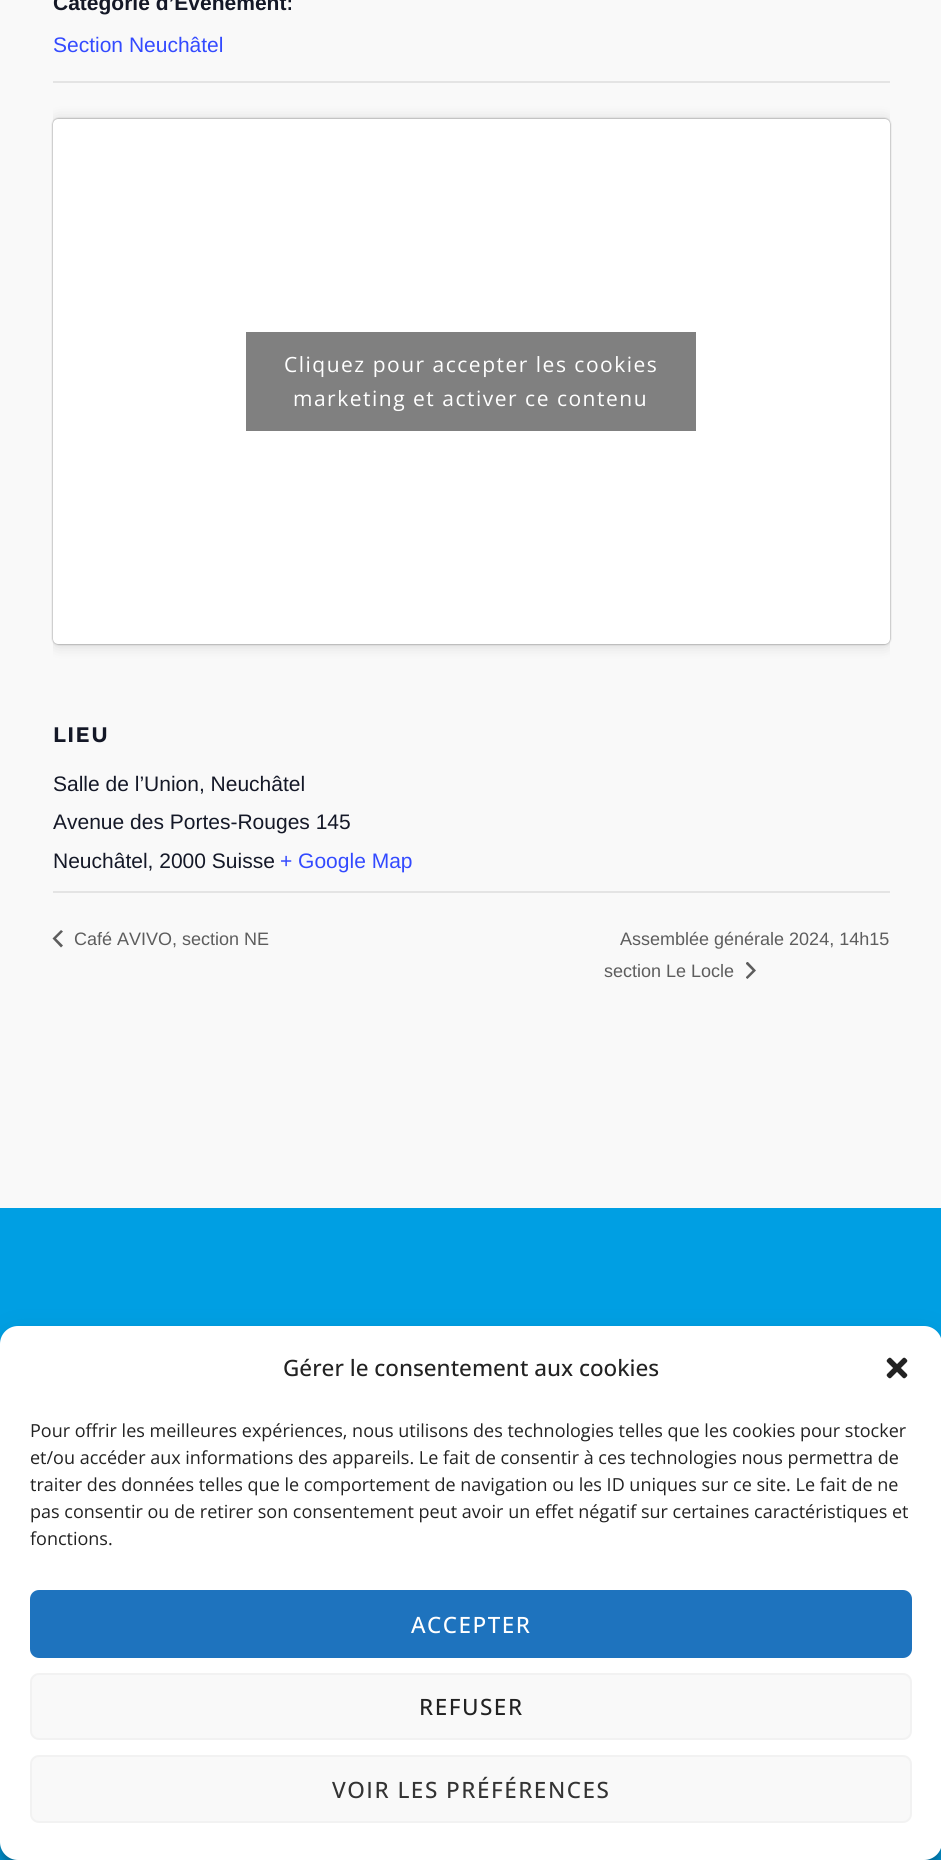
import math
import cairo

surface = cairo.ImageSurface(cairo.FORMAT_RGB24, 941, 1860)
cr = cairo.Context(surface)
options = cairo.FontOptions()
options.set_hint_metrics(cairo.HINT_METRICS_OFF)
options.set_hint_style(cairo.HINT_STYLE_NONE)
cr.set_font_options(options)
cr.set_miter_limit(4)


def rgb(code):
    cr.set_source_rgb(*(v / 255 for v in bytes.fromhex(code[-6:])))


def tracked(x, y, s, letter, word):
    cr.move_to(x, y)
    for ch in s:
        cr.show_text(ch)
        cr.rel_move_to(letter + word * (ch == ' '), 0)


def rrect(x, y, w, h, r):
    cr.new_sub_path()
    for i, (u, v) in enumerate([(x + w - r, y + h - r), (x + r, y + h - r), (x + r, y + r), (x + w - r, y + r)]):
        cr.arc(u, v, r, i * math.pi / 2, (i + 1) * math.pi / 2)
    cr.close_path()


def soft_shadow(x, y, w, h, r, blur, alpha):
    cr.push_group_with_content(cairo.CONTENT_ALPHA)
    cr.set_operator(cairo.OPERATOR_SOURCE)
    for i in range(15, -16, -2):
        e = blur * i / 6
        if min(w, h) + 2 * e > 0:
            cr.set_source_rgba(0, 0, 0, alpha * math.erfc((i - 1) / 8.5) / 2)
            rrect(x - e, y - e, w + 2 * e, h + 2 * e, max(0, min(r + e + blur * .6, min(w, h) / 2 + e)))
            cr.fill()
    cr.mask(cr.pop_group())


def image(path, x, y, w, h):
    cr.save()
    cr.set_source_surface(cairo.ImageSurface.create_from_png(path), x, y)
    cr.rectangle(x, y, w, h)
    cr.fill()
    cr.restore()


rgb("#f9f9f9")
cr.paint()
rgb("#e4e4e4")
cr.rectangle(53, 81, 837, 2)
cr.fill()
cr.save()
cr.rectangle(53, 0, 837, 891)
cr.clip()
rgb("#000000")
soft_shadow(53, 120, 837, 525, 5, 7.5, 0.15)
cr.restore()
rgb("#000000")
soft_shadow(53, 119, 837, 525, 5, 1, 0.5)
rgb("#ffffff")
rrect(53, 119, 837, 525, 5)
cr.fill()
rgb("#808080")
cr.rectangle(246, 332, 450, 99)
cr.fill()
rgb("#e4e4e4")
cr.rectangle(53, 891, 837, 2)
cr.fill()
rgb("#5d5d5d")
cr.new_path()
cr.move_to(63, 945.5)
cr.line_to(61, 947.5)
cr.line_to(52.5, 938.5)
cr.line_to(61, 930)
cr.line_to(63, 931.5)
cr.line_to(56, 938.5)
cr.close_path()
cr.fill()
cr.save()
cr.rectangle(746, 962, 10, 18)
cr.clip()
cr.new_path()
cr.move_to(745.5, 963.5)
cr.line_to(747.5, 961.5)
cr.line_to(756, 970.5)
cr.line_to(747.5, 979)
cr.line_to(745.5, 977.5)
cr.line_to(752.5, 970.5)
cr.close_path()
cr.fill()
cr.restore()
rgb("#009fe3")
cr.rectangle(0, 1208, 941, 652)
cr.fill()
rgb("#000000")
soft_shadow(0, 1335, 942, 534, 18, 4.5, 0.23)
soft_shadow(0, 1341, 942, 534, 18, 15, 0.19)
rgb("#ffffff")
rrect(0, 1326, 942, 534, 18)
cr.fill()
image("img/1.png", 886, 1357, 22, 22)
rgb("#1e73be")
rrect(31, 1591, 880, 66, 8)
cr.fill_preserve()
cr.stroke()
rgb("#f9f9f9")
rrect(31, 1674, 880, 65, 8)
cr.fill_preserve()
rgb("#f2f2f2")
cr.stroke()
rgb("#f9f9f9")
rrect(31, 1756, 880, 66, 8)
cr.fill_preserve()
rgb("#f2f2f2")
cr.stroke()
cr.select_font_face("Liberation Sans", cairo.FONT_SLANT_NORMAL, cairo.FONT_WEIGHT_BOLD)
cr.set_font_size(21)
rgb("#141827")
cr.move_to(53, 10)
cr.show_text("Catégorie d’Évènement:")
cr.select_font_face("Liberation Sans")
rgb("#334aff")
cr.move_to(53, 52)
cr.show_text("Section Neuchâtel")
cr.select_font_face("Open Sans")
rgb("#ffffff")
tracked(284, 372, "Cliquez pour accepter les cookies", 1.5, 0)
tracked(293, 406, "marketing et activer ce contenu", 1.5, 0)
cr.select_font_face("Montserrat", cairo.FONT_SLANT_NORMAL, cairo.FONT_WEIGHT_BOLD)
rgb("#141827")
tracked(53, 742, "LIEU", 1.5, 0)
cr.select_font_face("Liberation Sans")
for x, y, s in [
    (53, 791, "Salle de l’Union, Neuchâtel"),
    (53, 829, "Avenue des Portes-Rouges 145"),
    (53, 868, "Neuchâtel, 2000 Suisse"),
]:
    cr.move_to(x, y)
    cr.show_text(s)
rgb("#334aff")
cr.move_to(280, 868)
cr.show_text("+ Google Map")
cr.set_font_size(18)
rgb("#5d5d5d")
for x, y, s in [
    (74, 945, "Café AVIVO, section NE"),
    (620, 945, "Assemblée générale 2024, 14h15"),
    (604, 977, "section Le Locle"),
]:
    cr.move_to(x, y)
    cr.show_text(s)
cr.select_font_face("Open Sans Medium")
cr.set_font_size(22.5)
rgb("#222222")
cr.move_to(283, 1376)
cr.show_text("Gérer le consentement aux cookies")
cr.select_font_face("Open Sans")
cr.set_font_size(18)
for x, y, s in [
    (30, 1437, "Pour offrir les meilleures expériences, nous utilisons des technologies telles que les cookies pour stocker"),
    (30, 1464, "et/ou accéder aux informations des appareils. Le fait de consentir à ces technologies nous permettra de"),
    (30, 1491, "traiter des données telles que le comportement de navigation ou les ID uniques sur ce site. Le fait de ne"),
    (30, 1518, "pas consentir ou de retirer son consentement peut avoir un effet négatif sur certaines caractéristiques et"),
    (30, 1545, "fonctions."),
]:
    cr.move_to(x, y)
    cr.show_text(s)
cr.select_font_face("Open Sans Medium")
cr.set_font_size(22.5)
rgb("#ffffff")
tracked(411, 1633, "ACCEPTER", 1.5, 0)
rgb("#222222")
tracked(419, 1715, "REFUSER", 1.5, 0)
rgb("#333333")
tracked(332, 1798, "VOIR LES PRÉFÉRENCES", 1.5, 0)
surface.write_to_png("page.png")
